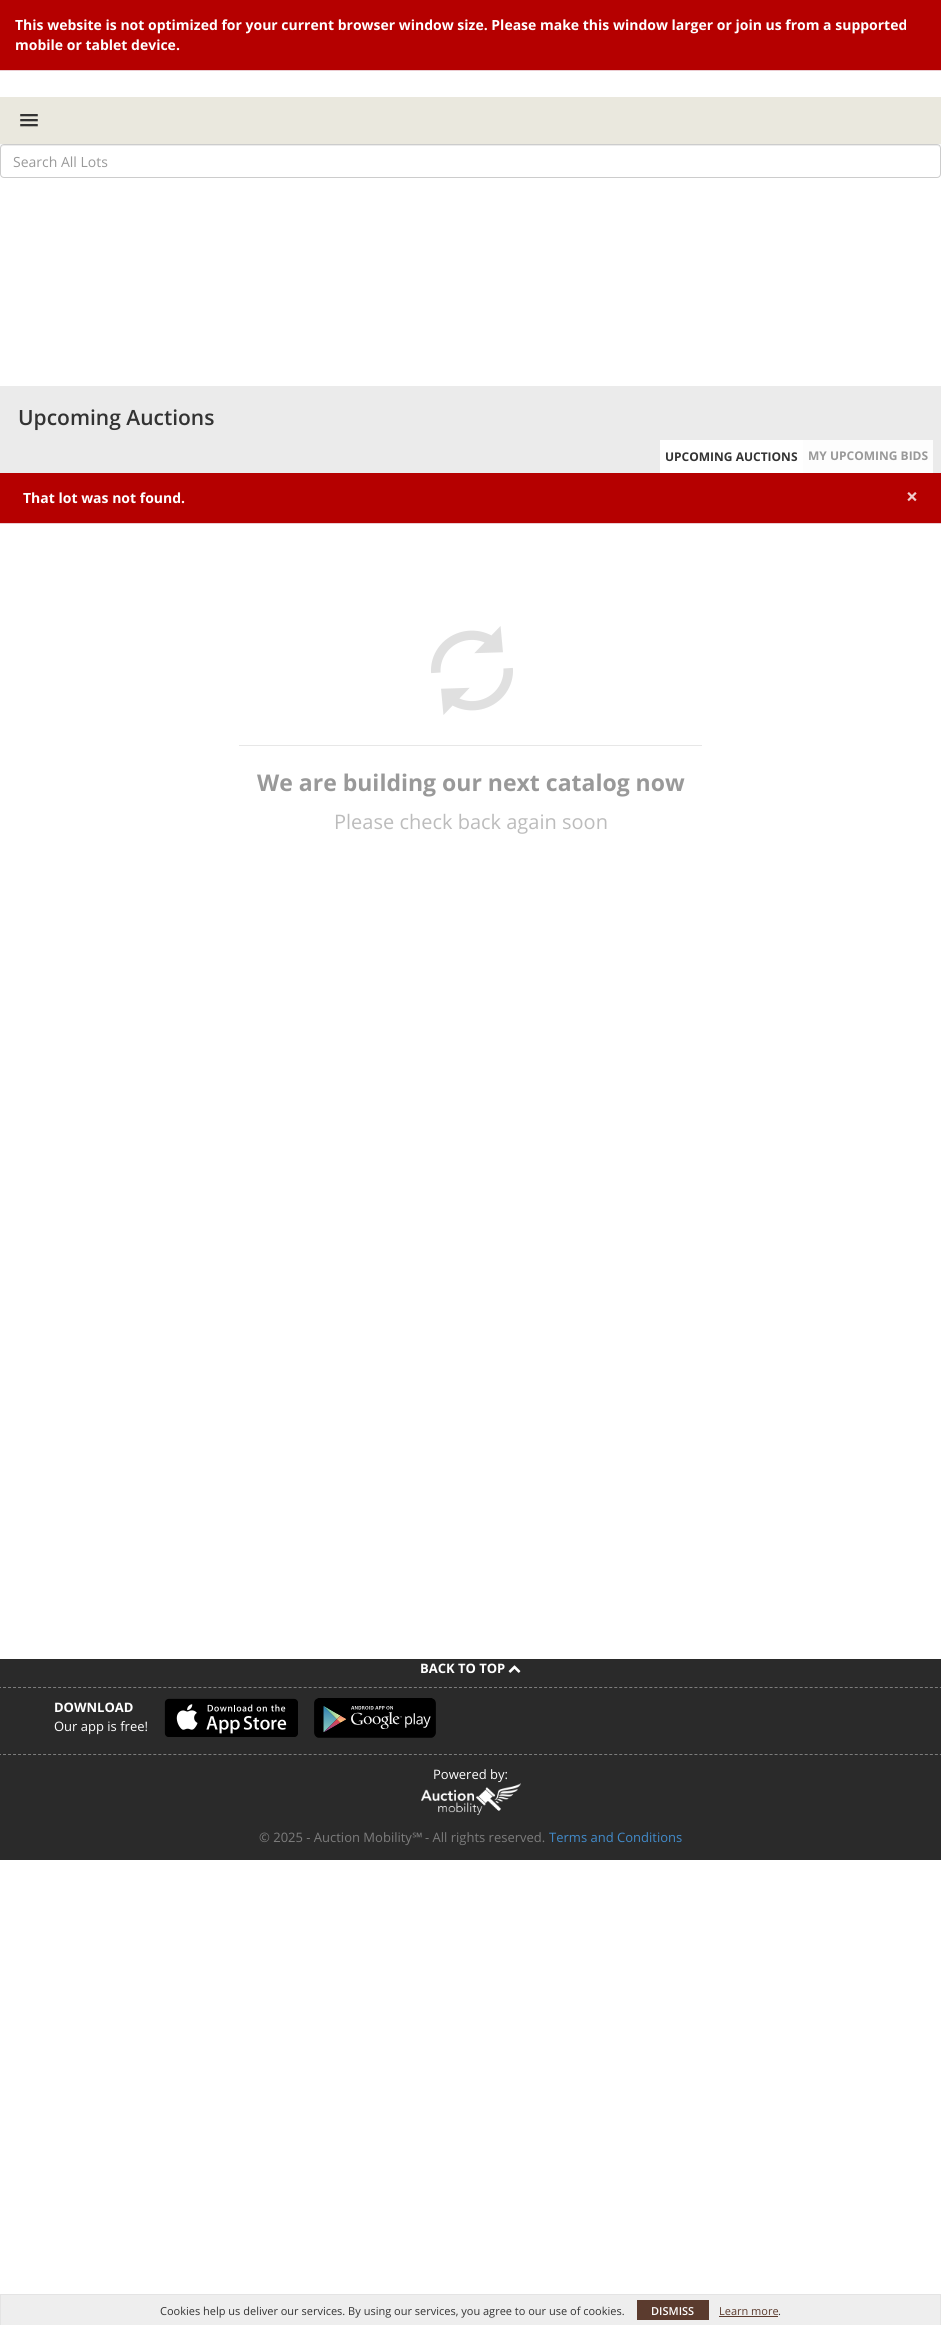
import math
import cairo

surface = cairo.ImageSurface(cairo.FORMAT_RGB24, 941, 2325)
cr = cairo.Context(surface)
options = cairo.FontOptions()
options.set_hint_metrics(cairo.HINT_METRICS_OFF)
options.set_hint_style(cairo.HINT_STYLE_NONE)
cr.set_font_options(options)
cr.set_miter_limit(4)


def rgb(code):
    cr.set_source_rgb(*(v / 255 for v in bytes.fromhex(code[-6:])))


def rrect(x, y, w, h, r):
    cr.new_sub_path()
    for i, (u, v) in enumerate([(x + w - r, y + h - r), (x + r, y + h - r), (x + r, y + r), (x + w - r, y + r)]):
        cr.arc(u, v, r, i * math.pi / 2, (i + 1) * math.pi / 2)
    cr.close_path()


def image(path, x, y, w, h):
    cr.save()
    cr.set_source_surface(cairo.ImageSurface.create_from_png(path), x, y)
    cr.rectangle(x, y, w, h)
    cr.fill()
    cr.restore()


rgb("#ffffff")
cr.paint()
for x, y, w, h, color in [
    (0, 0, 941, 70, "#b50000"),
    (0, 70, 941, 1, "#ebccd1"),
    (0, 144, 941, 2, "#f8f8f8"),
    (0, 97, 941, 47, "#eae8de"),
]:
    rgb(color)
    cr.rectangle(x, y, w, h)
    cr.fill()
rgb("#b0aea7")
cr.new_path()
cr.move_to(20, 115.5)
cr.curve_to(19, 117.5, 23.5, 117, 23.5, 117)
cr.line_to(34.5, 117)
cr.curve_to(34.5, 117, 39, 117.5, 38, 115.5)
cr.curve_to(37, 116.5, 30.5, 116, 29, 116)
cr.curve_to(27.5, 116, 21, 116.5, 20, 115.5)
cr.close_path()
cr.fill()
rgb("#333333")
rrect(20, 114, 18, 2, 1)
cr.fill()
rgb("#b0aea7")
cr.new_path()
cr.move_to(20, 120.5)
cr.curve_to(19, 122.5, 23.5, 122, 23.5, 122)
cr.line_to(34.5, 122)
cr.curve_to(34.5, 122, 39, 122.5, 38, 120.5)
cr.curve_to(37, 121.5, 30.5, 121, 29, 121)
cr.curve_to(27.5, 121, 21, 121.5, 20, 120.5)
cr.close_path()
cr.fill()
rgb("#333333")
rrect(20, 119, 18, 2, 1)
cr.fill()
rgb("#b0aea7")
cr.new_path()
cr.move_to(20, 125.5)
cr.curve_to(19, 127.5, 23.5, 127, 23.5, 127)
cr.line_to(34.5, 127)
cr.curve_to(34.5, 127, 39, 127.5, 38, 125.5)
cr.curve_to(37, 126.5, 30.5, 126, 29, 126)
cr.curve_to(27.5, 126, 21, 126.5, 20, 125.5)
cr.close_path()
cr.fill()
rgb("#333333")
rrect(20, 124, 18, 2, 1)
cr.fill()
rgb("#ffffff")
rrect(0, 144, 941, 34, 4)
cr.fill()
rgb("#ececec")
cr.new_path()
cr.move_to(4, 146)
cr.line_to(937, 146)
cr.curve_to(939, 146, 940, 147, 940, 149)
cr.curve_to(940, 147, 939, 145, 937, 145)
cr.line_to(4, 145)
cr.curve_to(2, 145, 1, 147, 1, 149)
cr.curve_to(1, 147, 2, 146, 4, 146)
cr.close_path()
cr.fill()
rrect(0.5, 144.5, 940, 33, 3.5)
rgb("#cccccc")
cr.set_line_width(1)
cr.stroke()
for x, y, w, h, color in [
    (0, 386, 941, 87, "#ebebeb"),
    (660, 440, 143, 33, "#ffffff"),
    (803, 440, 130, 33, "#fdfdfd"),
    (0, 473, 941, 50, "#b50000"),
    (0, 523, 941, 1, "#ebccd1"),
]:
    rgb(color)
    cr.rectangle(x, y, w, h)
    cr.fill()
image("img/1.png", 431, 626, 82, 89)
rgb("#e7e7e7")
cr.rectangle(239, 745, 463, 1)
cr.fill()
rgb("#2a2a2a")
cr.rectangle(0, 1659, 941, 201)
cr.fill()
cr.new_path()
cr.move_to(-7, 1687.5)
cr.line_to(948, 1687.5)
rgb("#7c7c7c")
cr.set_dash([3, 2.01])
cr.stroke()
image("img/2.png", 508, 1665, 13, 8)
cr.new_path()
cr.move_to(-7, 1754.5)
cr.line_to(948, 1754.5)
cr.stroke()
image("img/3.png", 164, 1698, 134, 39)
image("img/4.png", 314, 1698, 122, 40)
image("img/5.png", 421, 1783, 100, 32)
for x, y, w, h, color in [
    (1, 2295, 939, 30, "#eeeeee"),
    (0, 2294, 941, 1, "#e4e4e4"),
    (940, 2294, 1, 31, "#e4e4e4"),
    (0, 2294, 1, 31, "#e4e4e4"),
    (637, 2300, 72, 20, "#5b3b2e"),
    (719, 2316, 59, 1, "#5b3b2e"),
]:
    rgb(color)
    cr.rectangle(x, y, w, h)
    cr.fill()
cr.select_font_face("Open Sans", cairo.FONT_SLANT_NORMAL, cairo.FONT_WEIGHT_BOLD)
cr.set_font_size(14)
rgb("#ffffff")
cr.move_to(15, 30)
cr.show_text("This website is not optimized for your current browser window size. Please make this window larger or join us from a supported")
cr.move_to(15, 50)
cr.show_text("mobile or tablet device.")
cr.select_font_face("Open Sans")
rgb("#999999")
cr.move_to(13, 167)
cr.show_text("Search All Lots")
cr.select_font_face("Open Sans SemiBold")
cr.set_font_size(21)
rgb("#333333")
cr.move_to(18, 425)
cr.show_text("Upcoming Auctions")
cr.select_font_face("Open Sans", cairo.FONT_SLANT_NORMAL, cairo.FONT_WEIGHT_BOLD)
cr.set_font_size(12)
cr.move_to(665, 461)
cr.show_text("UPCOMING AUCTIONS")
rgb("#999999")
cr.move_to(808, 460)
cr.show_text("MY UPCOMING BIDS")
cr.set_font_size(14)
rgb("#ffffff")
cr.move_to(23, 503)
cr.show_text("That lot was not found.")
cr.set_font_size(21)
rgb("#f0cccc")
cr.move_to(906, 504)
cr.show_text("×")
cr.set_font_size(23)
rgb("#999999")
cr.move_to(257, 791)
cr.show_text("We are building our next catalog now")
cr.select_font_face("Open Sans")
cr.set_font_size(20)
rgb("#bcbcbc")
cr.move_to(334, 829)
cr.show_text("Please check back again soon")
cr.select_font_face("Open Sans", cairo.FONT_SLANT_NORMAL, cairo.FONT_WEIGHT_BOLD)
cr.set_font_size(13)
rgb("#ffffff")
cr.move_to(420, 1673)
cr.show_text("BACK TO TOP")
cr.move_to(54, 1712)
cr.show_text("DOWNLOAD")
cr.select_font_face("Open Sans")
cr.move_to(54, 1731)
cr.show_text("Our app is free!")
cr.move_to(433, 1779)
cr.show_text("Powered by:")
rgb("#7c7c7c")
cr.move_to(259, 1842)
cr.show_text("© 2025 - Auction Mobility")
cr.select_font_face("Noto Sans")
cr.move_to(412, 1842)
cr.show_text("℠")
cr.select_font_face("Open Sans")
cr.move_to(425, 1842)
cr.show_text("- All rights reserved.")
rgb("#428bca")
cr.move_to(549, 1842)
cr.show_text("Terms and Conditions")
cr.set_font_size(11)
rgb("#333333")
cr.move_to(160, 2315)
cr.show_text("Cookies help us deliver our services. By using our services, you agree to our use of cookies.")
cr.select_font_face("Open Sans SemiBold")
rgb("#ffffff")
cr.move_to(651, 2315)
cr.show_text("DISMISS")
cr.select_font_face("Open Sans")
rgb("#5b3b2e")
cr.move_to(719, 2315)
cr.show_text("Learn more")
rgb("#333333")
cr.move_to(778, 2315)
cr.show_text(".")
surface.write_to_png("page.png")
